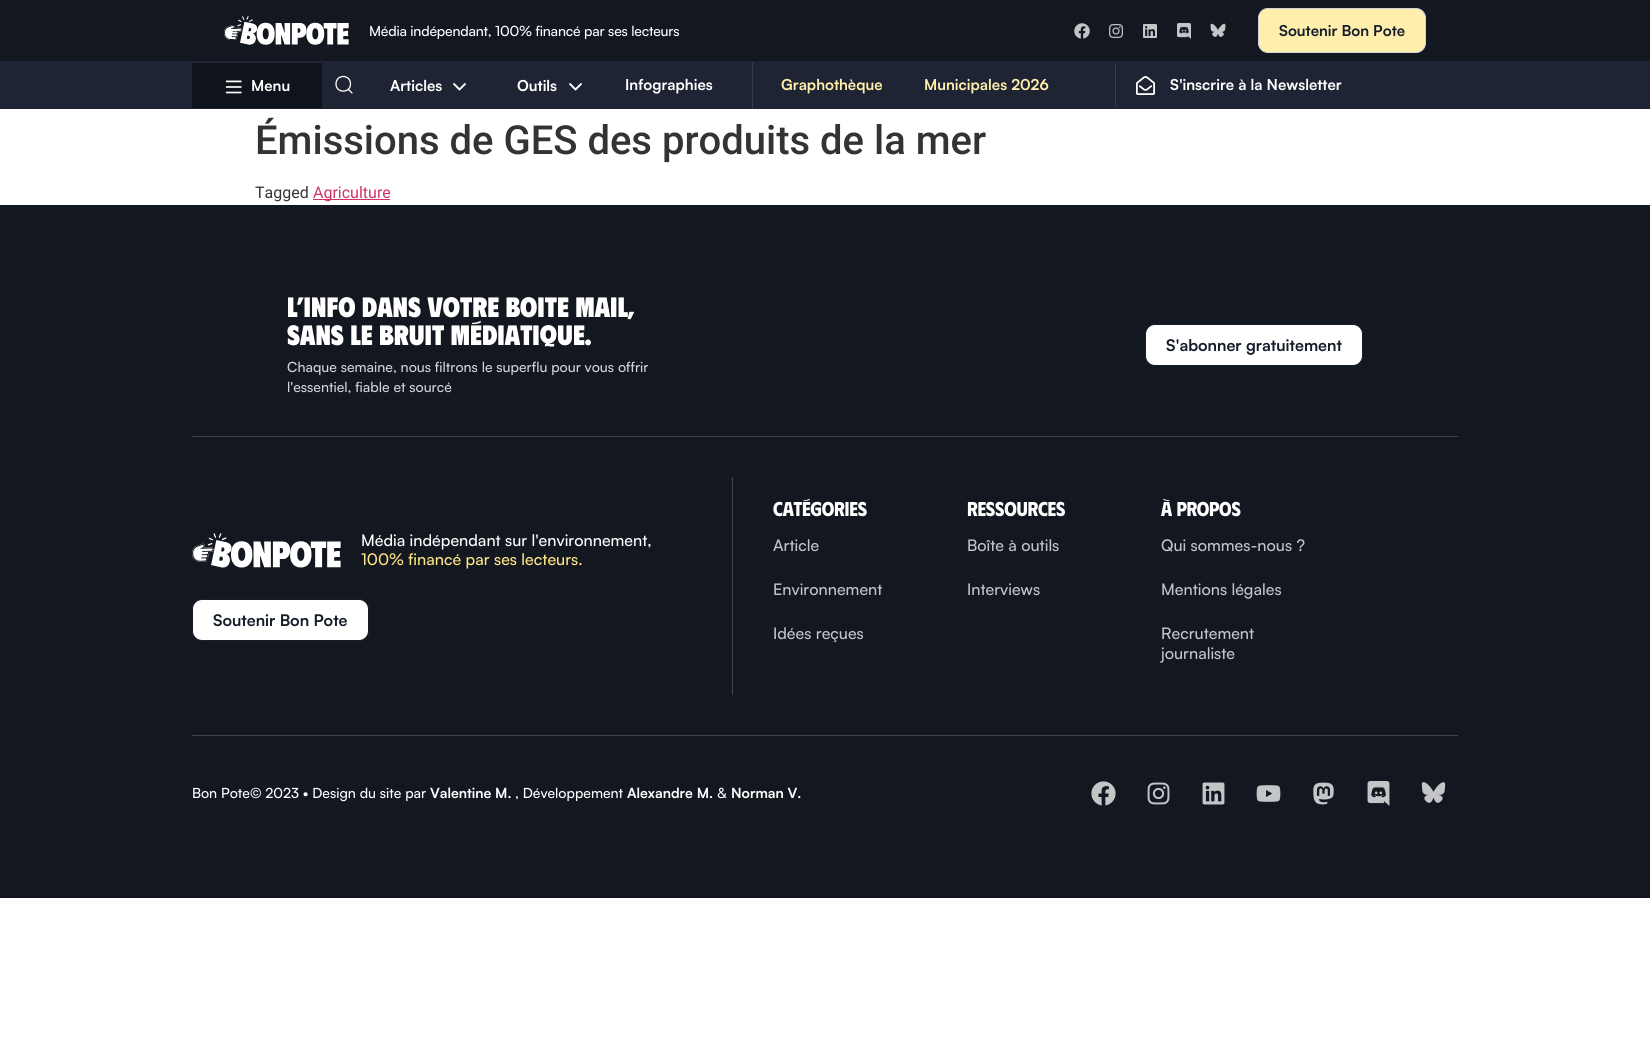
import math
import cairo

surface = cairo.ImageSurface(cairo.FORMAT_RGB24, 1650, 1049)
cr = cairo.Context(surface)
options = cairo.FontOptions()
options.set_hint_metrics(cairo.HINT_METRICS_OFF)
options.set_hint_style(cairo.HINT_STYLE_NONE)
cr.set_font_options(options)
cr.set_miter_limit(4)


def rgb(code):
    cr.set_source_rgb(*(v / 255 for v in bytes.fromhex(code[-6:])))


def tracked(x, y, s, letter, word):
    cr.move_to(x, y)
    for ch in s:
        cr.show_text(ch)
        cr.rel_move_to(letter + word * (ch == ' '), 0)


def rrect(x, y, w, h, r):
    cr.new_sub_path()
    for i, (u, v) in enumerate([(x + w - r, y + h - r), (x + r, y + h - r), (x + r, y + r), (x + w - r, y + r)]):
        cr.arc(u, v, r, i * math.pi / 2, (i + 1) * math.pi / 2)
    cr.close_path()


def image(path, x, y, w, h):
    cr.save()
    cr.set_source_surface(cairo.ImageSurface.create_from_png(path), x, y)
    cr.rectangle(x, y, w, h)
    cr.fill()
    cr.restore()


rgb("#ffffff")
cr.paint()
rgb("#131720")
cr.rectangle(0, 0, 1650, 61)
cr.fill()
image("img/1.png", 224, 16, 125, 29)
image("img/2.png", 1074, 23, 16, 16)
image("img/3.png", 1109, 24, 14, 14)
image("img/4.png", 1143, 24, 14, 14)
image("img/5.png", 1177, 23, 14, 16)
image("img/6.png", 1210, 23, 16, 14)
rgb("#ffeeac")
rrect(1258.5, 8.5, 167, 44, 9.5)
cr.fill_preserve()
rgb("#d0d5dd")
cr.set_line_width(1)
cr.stroke()
rgb("#1e2433")
cr.rectangle(0, 61, 1650, 48)
cr.fill()
rgb("#0f131b")
cr.rectangle(192, 63, 130, 45)
cr.fill()
image("img/7.png", 225, 80, 17, 14)
cr.new_path()
cr.move_to(348.5, 89.5)
cr.line_to(352, 93)
cr.move_to(336, 84)
cr.curve_to(336, 93.5, 350.5, 93.5, 350.5, 84)
cr.curve_to(350.5, 74, 336, 74, 336, 84)
cr.close_path()
rgb("#ffffff")
cr.set_line_width(1.3)
cr.set_line_cap(cairo.LINE_CAP_ROUND)
cr.set_line_join(cairo.LINE_JOIN_ROUND)
cr.stroke()
cr.new_path()
cr.move_to(465, 84)
cr.line_to(459.5, 89.5)
cr.line_to(454, 84)
cr.set_line_width(1.9)
cr.stroke()
cr.new_path()
cr.move_to(581, 84)
cr.line_to(575.5, 89.5)
cr.line_to(570, 84)
cr.stroke()
rgb("#323c52")
cr.rectangle(752, 62, 1, 47)
cr.fill()
cr.rectangle(1115, 64, 1, 43)
cr.fill()
image("img/8.png", 1136, 76, 19, 19)
rgb("#cc3366")
cr.rectangle(313, 199, 77, 1)
cr.fill()
rgb("#131720")
cr.rectangle(0, 205, 1650, 693)
cr.fill()
rgb("#ffffff")
rrect(1145.5, 324.5, 217, 41, 9.5)
cr.fill_preserve()
rgb("#151d2b")
cr.set_line_width(1)
cr.set_line_cap(cairo.LINE_CAP_BUTT)
cr.set_line_join(cairo.LINE_JOIN_MITER)
cr.stroke()
for x, y, w, h, color in [
    (192, 436, 1266, 1, "#42454d"),
    (192, 735, 1266, 1, "#42454d"),
    (732, 477, 1, 218, "#42454d"),
]:
    rgb(color)
    cr.rectangle(x, y, w, h)
    cr.fill()
image("img/9.png", 192, 533, 149, 35)
rgb("#ffffff")
rrect(192.5, 599.5, 176, 41, 9.5)
cr.fill_preserve()
rgb("#151d2b")
cr.stroke()
image("img/10.png", 1091, 781, 25, 25)
image("img/11.png", 1147, 782, 23, 23)
image("img/12.png", 1202, 782, 23, 23)
image("img/13.png", 1256, 785, 25, 17)
image("img/14.png", 1313, 782, 21, 23)
image("img/15.png", 1367, 781, 23, 25)
image("img/16.png", 1421, 782, 25, 21)
cr.select_font_face("Satoshi Medium")
cr.set_font_size(14)
rgb("#ffffff")
tracked(369, 36, "Média indépendant, 100% financé par ses lecteurs", -0.2, 0)
cr.select_font_face("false", cairo.FONT_SLANT_NORMAL, cairo.FONT_WEIGHT_BOLD)
cr.set_font_size(15)
rgb("#151d2b")
cr.move_to(1279, 36)
cr.show_text("Soutenir Bon Pote")
rgb("#ffffff")
for x, y, s in [
    (251, 91, "Menu"),
    (390, 91, "Articles"),
    (517, 91, "Outils"),
    (625, 90, "Infographies"),
]:
    cr.move_to(x, y)
    cr.show_text(s)
rgb("#ffeeac")
cr.move_to(781, 90)
cr.show_text("Graphothèque")
cr.move_to(924, 90)
cr.show_text("Municipales 2026")
rgb("#ffffff")
cr.move_to(1170, 90)
cr.show_text("S'inscrire à la Newsletter")
cr.select_font_face("Roboto Medium")
cr.set_font_size(40)
rgb("#333333")
cr.move_to(255, 154)
cr.show_text("Émissions de GES des produits de la mer")
cr.select_font_face("Roboto")
cr.set_font_size(16)
cr.move_to(255, 198)
cr.show_text("Tagged")
rgb("#cc3366")
cr.move_to(313, 198)
cr.show_text("Agriculture")
cr.select_font_face("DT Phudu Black")
cr.set_font_size(28)
rgb("#ffffff")
cr.move_to(287, 317)
cr.show_text("L’INFO DANS VOTRE BOITE MAIL,")
cr.move_to(287, 345)
cr.show_text("SANS LE BRUIT MÉDIATIQUE.")
cr.select_font_face("Satoshi Medium")
cr.set_font_size(14)
rgb("#d0d5dd")
cr.move_to(287, 372)
cr.show_text("Chaque semaine, nous filtrons le superflu pour vous offrir")
cr.move_to(287, 392)
cr.show_text("l'essentiel, fiable et sourcé")
cr.select_font_face("false", cairo.FONT_SLANT_NORMAL, cairo.FONT_WEIGHT_BOLD)
cr.set_font_size(16)
rgb("#151d2b")
cr.move_to(1166, 351)
cr.show_text("S'abonner gratuitement")
cr.select_font_face("Satoshi Medium")
rgb("#ffffff")
cr.move_to(361, 546)
cr.show_text("Média indépendant sur l'environnement,")
rgb("#ffe687")
cr.move_to(361, 565)
cr.show_text("100% financé par ses lecteurs.")
cr.select_font_face("false", cairo.FONT_SLANT_NORMAL, cairo.FONT_WEIGHT_BOLD)
rgb("#151d2b")
cr.move_to(213, 626)
cr.show_text("Soutenir Bon Pote")
cr.select_font_face("DT Phudu", cairo.FONT_SLANT_NORMAL, cairo.FONT_WEIGHT_BOLD)
cr.set_font_size(20)
rgb("#ffffff")
tracked(773, 516, "Catégories", -0.25, 0)
cr.select_font_face("Satoshi Medium")
cr.set_font_size(16)
rgb("#c4c5c7")
for x, y, s in [
    (773, 551, "Article"),
    (773, 595, "Environnement"),
    (773, 639, "Idées reçues"),
]:
    cr.move_to(x, y)
    cr.show_text(s)
cr.select_font_face("DT Phudu", cairo.FONT_SLANT_NORMAL, cairo.FONT_WEIGHT_BOLD)
cr.set_font_size(20)
rgb("#ffffff")
tracked(967, 516, "Ressources", -0.25, 0)
cr.select_font_face("Satoshi Medium")
cr.set_font_size(16)
rgb("#c4c5c7")
cr.move_to(967, 551)
cr.show_text("Boîte à outils")
cr.move_to(967, 595)
cr.show_text("Interviews")
cr.select_font_face("DT Phudu", cairo.FONT_SLANT_NORMAL, cairo.FONT_WEIGHT_BOLD)
cr.set_font_size(20)
rgb("#ffffff")
tracked(1161, 516, "À propos", -0.25, 0)
cr.select_font_face("Satoshi Medium")
cr.set_font_size(16)
rgb("#c4c5c7")
for x, y, s in [
    (1161, 551, "Qui sommes-nous ?"),
    (1161, 595, "Mentions légales"),
    (1161, 639, "Recrutement"),
    (1161, 659, "journaliste"),
]:
    cr.move_to(x, y)
    cr.show_text(s)
cr.set_font_size(14)
rgb("#ffffff")
cr.move_to(192, 798)
cr.show_text("Bon Pote© 2023 • Design du site par")
cr.select_font_face("false", cairo.FONT_SLANT_NORMAL, cairo.FONT_WEIGHT_BOLD)
cr.move_to(430, 798)
cr.show_text("Valentine M.")
cr.select_font_face("Satoshi Medium")
cr.move_to(515, 798)
cr.show_text(", Développement")
cr.select_font_face("false", cairo.FONT_SLANT_NORMAL, cairo.FONT_WEIGHT_BOLD)
cr.move_to(627, 798)
cr.show_text("Alexandre M.")
cr.select_font_face("Satoshi Medium")
cr.move_to(717, 798)
cr.show_text("&")
cr.select_font_face("false", cairo.FONT_SLANT_NORMAL, cairo.FONT_WEIGHT_BOLD)
cr.move_to(731, 798)
cr.show_text("Norman V.")
surface.write_to_png("page.png")
